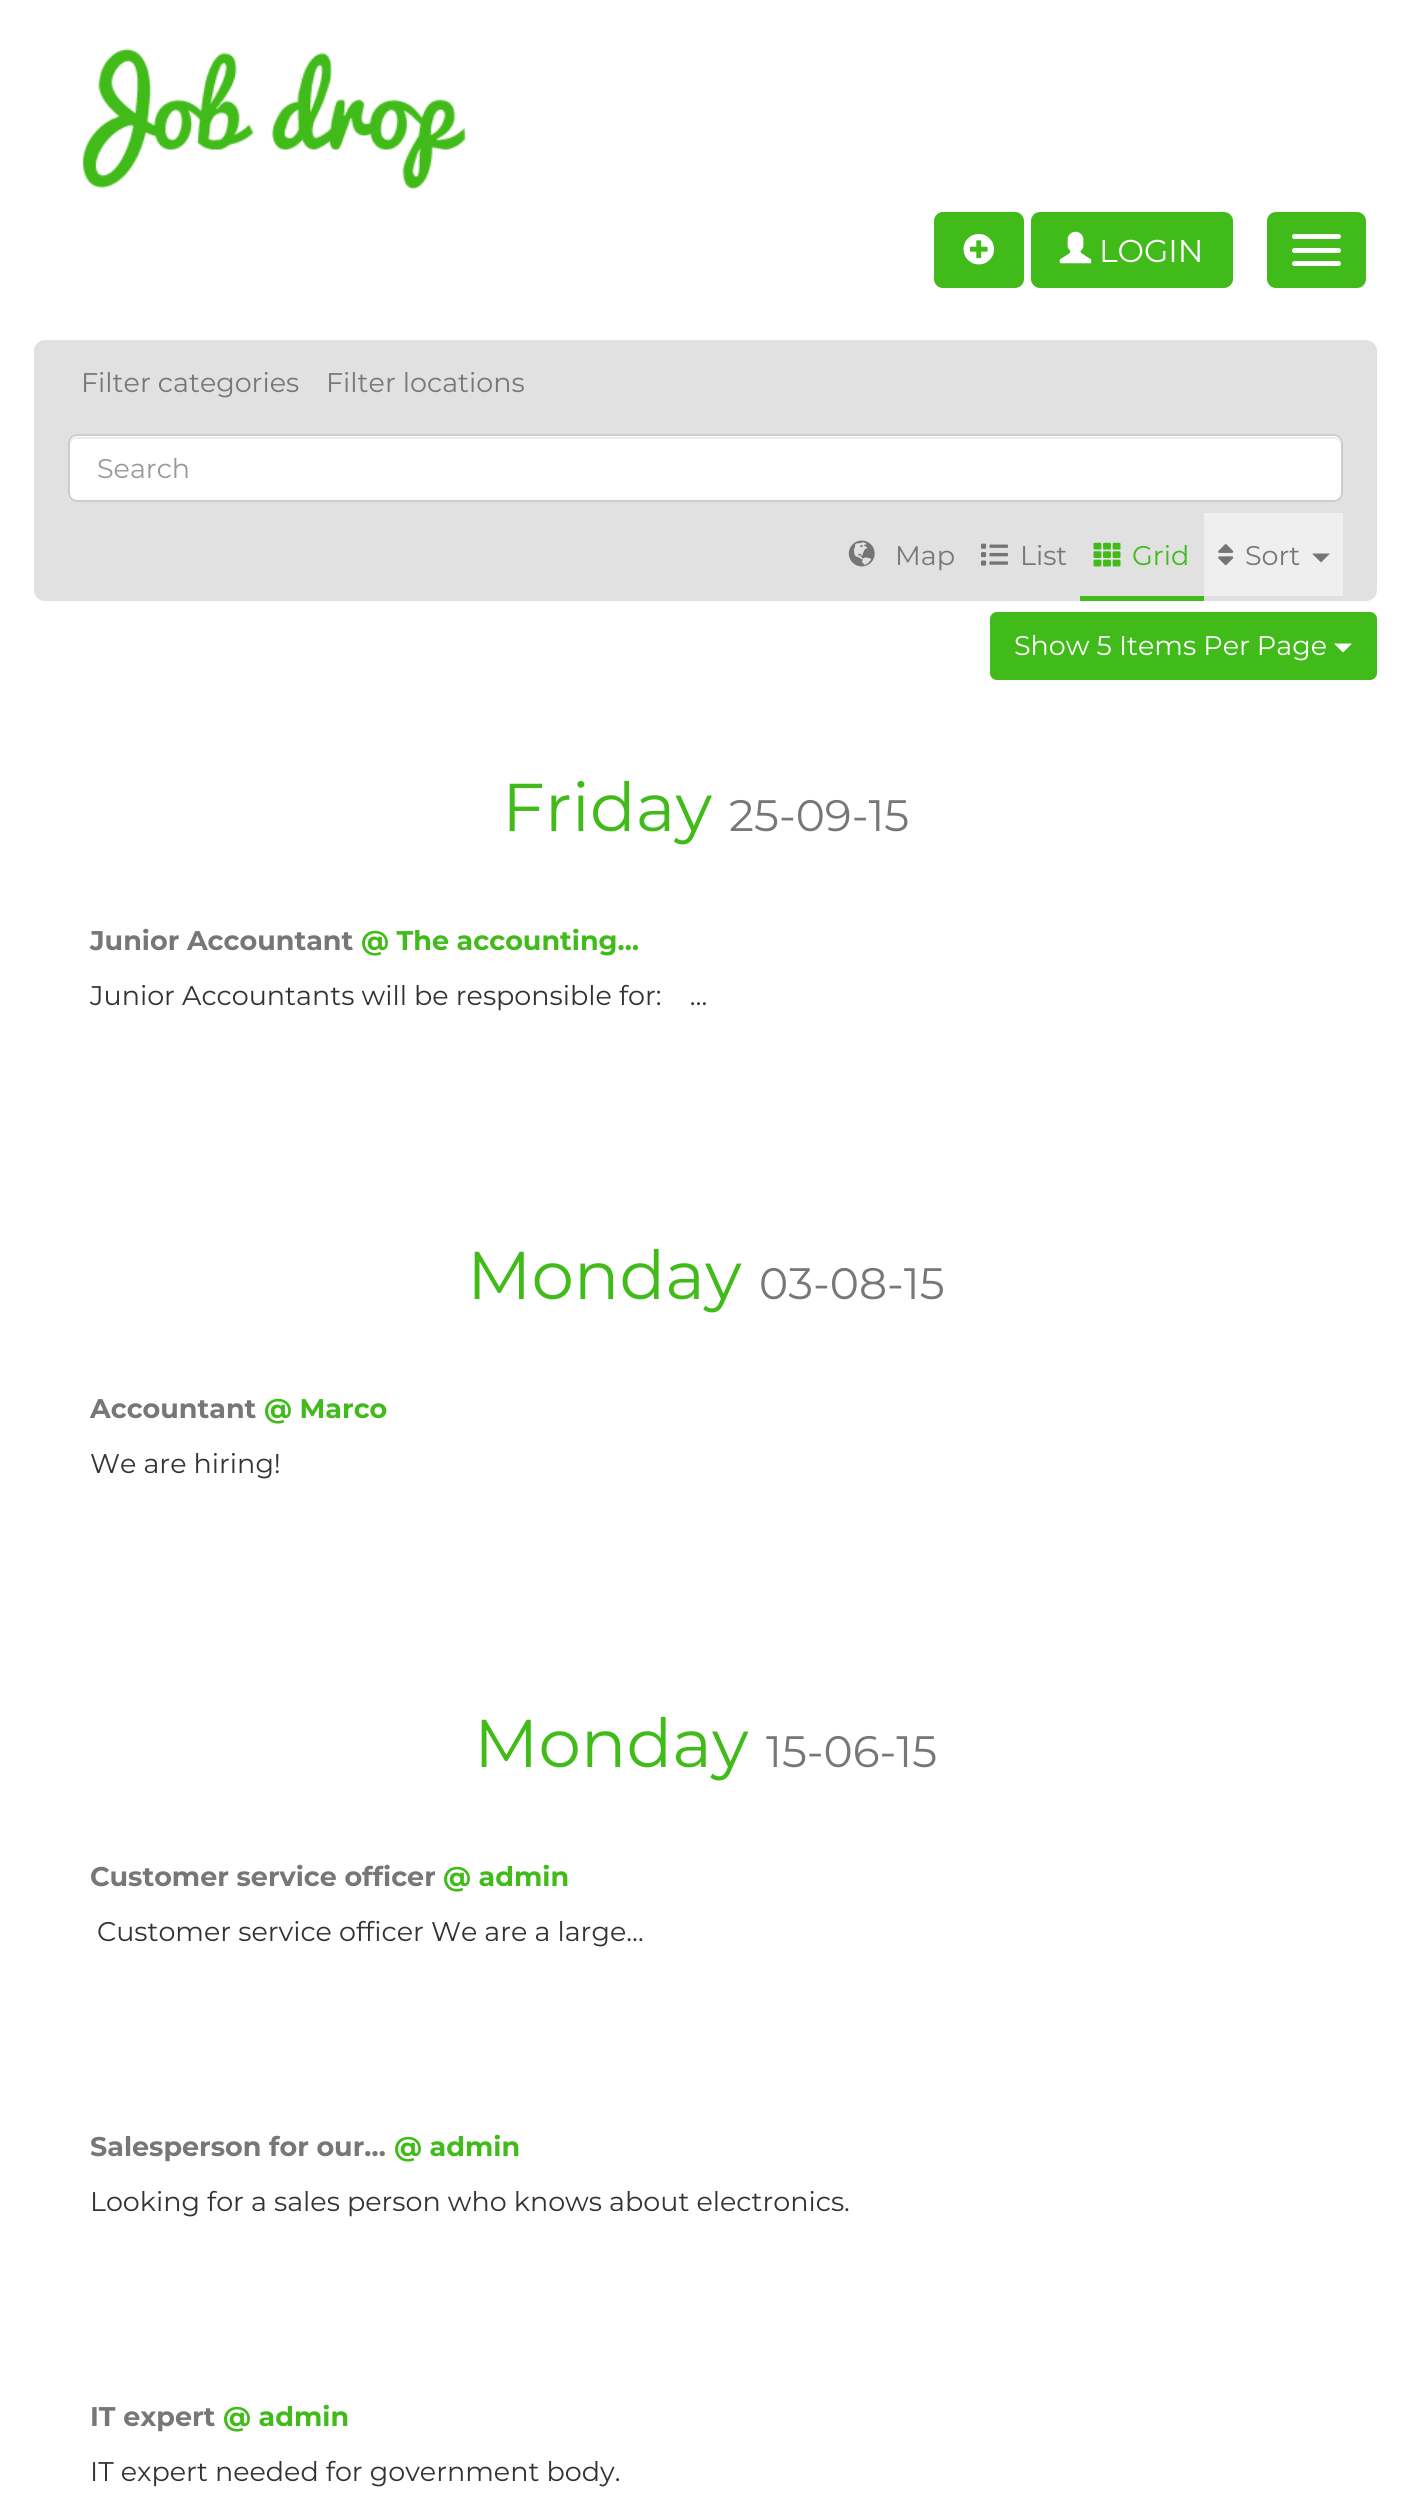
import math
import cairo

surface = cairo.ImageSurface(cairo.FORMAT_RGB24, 1410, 2514)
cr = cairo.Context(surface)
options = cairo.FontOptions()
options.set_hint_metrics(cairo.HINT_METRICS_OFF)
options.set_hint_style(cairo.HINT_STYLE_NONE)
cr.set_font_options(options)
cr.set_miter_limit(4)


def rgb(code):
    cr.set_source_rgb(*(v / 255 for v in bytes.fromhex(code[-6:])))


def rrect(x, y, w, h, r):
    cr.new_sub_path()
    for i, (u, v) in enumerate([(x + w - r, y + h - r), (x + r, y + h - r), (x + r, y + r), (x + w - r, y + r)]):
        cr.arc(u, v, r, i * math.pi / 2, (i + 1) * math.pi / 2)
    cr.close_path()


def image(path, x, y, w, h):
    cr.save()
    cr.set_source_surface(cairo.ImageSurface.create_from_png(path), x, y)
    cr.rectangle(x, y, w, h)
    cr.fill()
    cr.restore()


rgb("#ffffff")
cr.paint()
image("img/1.png", 82, 48, 384, 142)
rgb("#41bb19")
rrect(934, 212, 90, 76, 9)
cr.fill()
image("img/2.png", 963, 233, 31, 32)
rrect(1031, 212, 202, 76, 9)
cr.fill()
image("img/3.png", 1059, 231, 33, 33)
rrect(1267, 212, 99, 76, 9)
cr.fill()
rgb("#ffffff")
rrect(1292, 234, 49, 5, 2.5)
cr.fill()
rrect(1292, 248, 49, 5, 2.5)
cr.fill()
rrect(1292, 261, 49, 5, 2.5)
cr.fill()
rgb("#e1e1e1")
rrect(34, 340, 1343, 261, 11)
cr.fill()
rgb("#ffffff")
rrect(68, 434, 1275, 68, 9)
cr.fill()
rgb("#ececec")
cr.new_path()
cr.move_to(76, 439)
cr.line_to(1334, 439)
cr.curve_to(1338, 439, 1341, 442, 1341, 446)
cr.line_to(1341, 444)
cr.curve_to(1341, 440, 1338, 437, 1334, 437)
cr.line_to(77, 437)
cr.curve_to(73, 437, 70, 440, 70, 444)
cr.line_to(70, 446)
cr.curve_to(70, 442, 73, 439, 76, 439)
cr.close_path()
cr.fill()
rrect(69, 435, 1273, 66, 8)
rgb("#cccccc")
cr.stroke()
image("img/4.png", 848, 540, 27, 27)
image("img/5.png", 981, 543, 27, 23)
rgb("#41bb19")
cr.rectangle(1080, 596, 124, 5)
cr.fill()
image("img/6.png", 1093, 542, 28, 25)
rgb("#efefef")
cr.rectangle(1204, 513, 139, 83)
cr.fill()
image("img/7.png", 1218, 544, 16, 22)
rgb("#757575")
cr.new_path()
cr.move_to(1312, 553.5)
cr.line_to(1330, 553.5)
cr.line_to(1321, 562.5)
cr.close_path()
cr.fill()
rgb("#41bb19")
rrect(991, 613, 385, 66, 6)
cr.fill_preserve()
cr.stroke()
rgb("#ffffff")
cr.new_path()
cr.move_to(1334, 643.5)
cr.line_to(1352, 643.5)
cr.line_to(1343, 652.5)
cr.close_path()
cr.fill()
cr.select_font_face("Montserrat")
cr.set_font_size(31.5)
cr.move_to(1099, 262)
cr.show_text("LOGIN")
cr.set_font_size(27)
rgb("#777777")
cr.move_to(81, 392)
cr.show_text("Filter categories")
cr.move_to(326, 392)
cr.show_text("Filter locations")
rgb("#999999")
cr.move_to(97, 478)
cr.show_text("Search")
rgb("#777777")
cr.move_to(895, 565)
cr.show_text("Map")
cr.move_to(1020, 565)
cr.show_text("List")
rgb("#41bb19")
cr.move_to(1132, 565)
cr.show_text("Grid")
rgb("#777777")
cr.move_to(1245, 565)
cr.show_text("Sort")
rgb("#ffffff")
cr.move_to(1014, 655)
cr.show_text("Show 5 Items Per Page")
cr.set_font_size(67.5)
rgb("#41bb19")
cr.move_to(502, 831)
cr.show_text("Friday")
cr.set_font_size(44)
rgb("#777777")
cr.move_to(729, 831)
cr.show_text("25-09-15")
cr.select_font_face("Montserrat", cairo.FONT_SLANT_NORMAL, cairo.FONT_WEIGHT_BOLD)
cr.set_font_size(27)
cr.move_to(90, 950)
cr.show_text("Junior Accountant")
rgb("#41bb19")
cr.move_to(361, 950)
cr.show_text("@ The accounting…")
cr.select_font_face("Montserrat")
rgb("#333333")
cr.move_to(90, 1005)
cr.show_text("Junior Accountants will be responsible for:    …")
cr.set_font_size(67.5)
rgb("#41bb19")
cr.move_to(467, 1299)
cr.show_text("Monday")
cr.set_font_size(44)
rgb("#777777")
cr.move_to(759, 1299)
cr.show_text("03-08-15")
cr.select_font_face("Montserrat", cairo.FONT_SLANT_NORMAL, cairo.FONT_WEIGHT_BOLD)
cr.set_font_size(27)
cr.move_to(90, 1418)
cr.show_text("Accountant")
rgb("#41bb19")
cr.move_to(264, 1418)
cr.show_text("@ Marco")
cr.select_font_face("Montserrat")
rgb("#333333")
cr.move_to(90, 1473)
cr.show_text("We are hiring!")
cr.set_font_size(67.5)
rgb("#41bb19")
cr.move_to(474, 1767)
cr.show_text("Monday")
cr.set_font_size(44)
rgb("#777777")
cr.move_to(766, 1767)
cr.show_text("15-06-15")
cr.select_font_face("Montserrat", cairo.FONT_SLANT_NORMAL, cairo.FONT_WEIGHT_BOLD)
cr.set_font_size(27)
cr.move_to(90, 1886)
cr.show_text("Customer service officer")
rgb("#41bb19")
cr.move_to(443, 1886)
cr.show_text("@ admin")
cr.select_font_face("Montserrat")
rgb("#333333")
cr.move_to(97, 1941)
cr.show_text("Customer service officer We are a large…")
cr.select_font_face("Montserrat", cairo.FONT_SLANT_NORMAL, cairo.FONT_WEIGHT_BOLD)
rgb("#777777")
cr.move_to(90, 2156)
cr.show_text("Salesperson for our…")
rgb("#41bb19")
cr.move_to(394, 2156)
cr.show_text("@ admin")
cr.select_font_face("Montserrat")
rgb("#333333")
cr.move_to(90, 2211)
cr.show_text("Looking for a sales person who knows about electronics.")
cr.select_font_face("Montserrat", cairo.FONT_SLANT_NORMAL, cairo.FONT_WEIGHT_BOLD)
rgb("#777777")
cr.move_to(90, 2426)
cr.show_text("IT expert")
rgb("#41bb19")
cr.move_to(223, 2426)
cr.show_text("@ admin")
cr.select_font_face("Montserrat")
rgb("#333333")
cr.move_to(90, 2481)
cr.show_text("IT expert needed for government body.")
surface.write_to_png("page.png")
